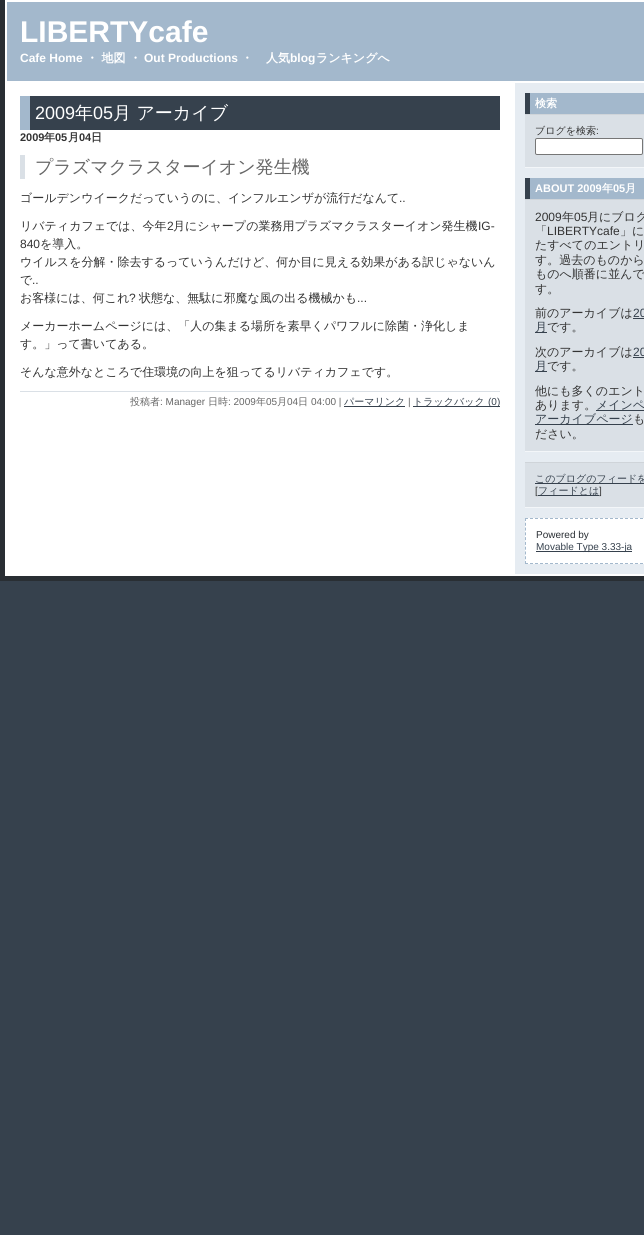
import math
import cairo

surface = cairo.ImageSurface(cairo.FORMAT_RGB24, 644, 1235)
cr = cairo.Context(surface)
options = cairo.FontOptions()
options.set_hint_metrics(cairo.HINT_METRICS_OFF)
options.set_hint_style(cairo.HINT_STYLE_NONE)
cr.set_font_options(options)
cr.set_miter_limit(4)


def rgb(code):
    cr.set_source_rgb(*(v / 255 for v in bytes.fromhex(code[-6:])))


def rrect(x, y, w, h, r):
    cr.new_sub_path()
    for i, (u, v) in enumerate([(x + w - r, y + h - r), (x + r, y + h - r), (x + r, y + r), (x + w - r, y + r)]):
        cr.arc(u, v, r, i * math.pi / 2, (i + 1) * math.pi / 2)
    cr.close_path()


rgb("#36414d")
cr.paint()
for x, y, w, h, color in [
    (5, 81, 510, 495, "#ffffff"),
    (0, 576, 644, 5, "#292e33"),
    (0, 0, 5, 581, "#292e33"),
    (7, 2, 637, 79, "#a3b8cc"),
    (5, 0, 639, 2, "#ffffff"),
    (5, 0, 2, 81, "#ffffff"),
    (30, 96, 470, 34, "#36414d"),
    (20, 96, 10, 34, "#a3b8cc"),
    (20, 155, 5, 24, "#dae0e6"),
    (20, 391, 480, 1, "#dae0e6"),
    (344, 406, 61, 1, "#36414d"),
    (413, 406, 87, 1, "#36414d"),
    (515, 83, 129, 491, "#e6ecf2"),
    (515, 81, 129, 2, "#ffffff"),
    (515, 574, 129, 2, "#ffffff"),
    (525, 115, 119, 52, "#dae0e6"),
    (525, 167, 119, 1, "#f3f6f9"),
    (530, 93, 114, 21, "#a3b8cc"),
    (525, 93, 5, 21, "#36414d"),
    (525, 114, 119, 1, "#cfd4d9"),
]:
    rgb(color)
    cr.rectangle(x, y, w, h)
    cr.fill()
rgb("#ffffff")
rrect(535.5, 138.5, 107, 16, 1.5)
cr.fill_preserve()
rgb("#767676")
cr.set_line_width(1)
cr.stroke()
for x, y, w, h, color in [
    (525, 200, 119, 251, "#dae0e6"),
    (525, 451, 119, 1, "#f3f6f9"),
    (530, 178, 114, 21, "#a3b8cc"),
    (525, 178, 5, 21, "#36414d"),
    (525, 199, 119, 1, "#cfd4d9"),
    (633, 318, 11, 1, "#36414d"),
    (535, 332, 12, 1, "#36414d"),
    (633, 357, 11, 1, "#36414d"),
    (535, 371, 12, 1, "#36414d"),
    (596, 410, 48, 1, "#36414d"),
    (535, 424, 98, 1, "#36414d"),
    (525, 463, 119, 44, "#dae0e6"),
    (525, 507, 119, 1, "#f3f6f9"),
    (525, 462, 119, 1, "#cfd4d9"),
    (535, 483, 109, 1, "#36414d"),
    (538, 495, 61, 1, "#36414d"),
    (525, 518, 119, 46, "#ffffff"),
]:
    rgb(color)
    cr.rectangle(x, y, w, h)
    cr.fill()
cr.new_path()
cr.move_to(525, 518.5)
cr.line_to(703, 518.5)
rgb("#a3b8cc")
cr.set_dash([3, 2])
cr.stroke()
cr.new_path()
cr.move_to(525, 563.5)
cr.line_to(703, 563.5)
cr.stroke()
cr.new_path()
cr.move_to(525.5, 518)
cr.line_to(525.5, 564)
cr.set_dash([3, 1.78])
cr.stroke()
rgb("#36414d")
cr.rectangle(536, 551, 96, 1)
cr.fill()
cr.select_font_face("Liberation Sans", cairo.FONT_SLANT_NORMAL, cairo.FONT_WEIGHT_BOLD)
cr.set_font_size(30)
rgb("#ffffff")
cr.move_to(20, 42)
cr.show_text("LIBERTYcafe")
cr.set_font_size(12)
cr.move_to(20, 62)
cr.show_text("Cafe Home")
cr.select_font_face("WenQuanYi Zen Hei", cairo.FONT_SLANT_NORMAL, cairo.FONT_WEIGHT_BOLD)
cr.move_to(86, 62)
cr.show_text("・ 地図 ・")
cr.select_font_face("Liberation Sans", cairo.FONT_SLANT_NORMAL, cairo.FONT_WEIGHT_BOLD)
cr.move_to(144, 62)
cr.show_text("Out Productions")
cr.select_font_face("WenQuanYi Zen Hei", cairo.FONT_SLANT_NORMAL, cairo.FONT_WEIGHT_BOLD)
cr.move_to(241, 62)
cr.show_text("・")
cr.move_to(266, 62)
cr.show_text("人気")
cr.select_font_face("Liberation Sans", cairo.FONT_SLANT_NORMAL, cairo.FONT_WEIGHT_BOLD)
cr.move_to(290, 62)
cr.show_text("blog")
cr.select_font_face("WenQuanYi Zen Hei", cairo.FONT_SLANT_NORMAL, cairo.FONT_WEIGHT_BOLD)
cr.move_to(316, 62)
cr.show_text("ランキングへ")
cr.select_font_face("Liberation Sans")
cr.set_font_size(18)
cr.move_to(35, 119)
cr.show_text("2009")
cr.select_font_face("WenQuanYi Zen Hei Medium")
cr.move_to(75, 119)
cr.show_text("年")
cr.select_font_face("Liberation Sans")
cr.move_to(93, 119)
cr.show_text("05")
cr.select_font_face("WenQuanYi Zen Hei Medium")
cr.move_to(113, 119)
cr.show_text("月 アーカイブ")
cr.select_font_face("Liberation Sans", cairo.FONT_SLANT_NORMAL, cairo.FONT_WEIGHT_BOLD)
cr.set_font_size(11)
rgb("#333333")
cr.move_to(20, 141)
cr.show_text("2009")
cr.select_font_face("WenQuanYi Zen Hei", cairo.FONT_SLANT_NORMAL, cairo.FONT_WEIGHT_BOLD)
cr.move_to(44, 141)
cr.show_text("年")
cr.select_font_face("Liberation Sans", cairo.FONT_SLANT_NORMAL, cairo.FONT_WEIGHT_BOLD)
cr.move_to(55, 141)
cr.show_text("05")
cr.select_font_face("WenQuanYi Zen Hei", cairo.FONT_SLANT_NORMAL, cairo.FONT_WEIGHT_BOLD)
cr.move_to(68, 141)
cr.show_text("月")
cr.select_font_face("Liberation Sans", cairo.FONT_SLANT_NORMAL, cairo.FONT_WEIGHT_BOLD)
cr.move_to(79, 141)
cr.show_text("04")
cr.select_font_face("WenQuanYi Zen Hei", cairo.FONT_SLANT_NORMAL, cairo.FONT_WEIGHT_BOLD)
cr.move_to(91, 141)
cr.show_text("日")
cr.select_font_face("WenQuanYi Zen Hei Medium")
cr.set_font_size(18)
rgb("#666666")
cr.move_to(35, 173)
cr.show_text("プラズマクラスターイオン発生機")
cr.set_font_size(12)
rgb("#333333")
cr.move_to(20, 202)
cr.show_text("ゴールデンウイークだっていうのに、インフルエンザが流行だなんて")
cr.select_font_face("Liberation Sans")
cr.move_to(399, 202)
cr.show_text("..")
cr.select_font_face("WenQuanYi Zen Hei Medium")
cr.move_to(20, 230)
cr.show_text("リバティカフェでは、今年")
cr.select_font_face("Liberation Sans")
cr.move_to(167, 230)
cr.show_text("2")
cr.select_font_face("WenQuanYi Zen Hei Medium")
cr.move_to(173, 230)
cr.show_text("月にシャープの業務用プラズマクラスターイオン発生機")
cr.select_font_face("Liberation Sans")
cr.move_to(478, 230)
cr.show_text("IG-")
cr.move_to(20, 248)
cr.show_text("840")
cr.select_font_face("WenQuanYi Zen Hei Medium")
for x, y, s in [
    (40, 248, "を導入。"),
    (20, 266, "ウイルスを分解・除去するっていうんだけど、何か目に見える効果がある訳じゃないん"),
    (20, 284, "で"),
]:
    cr.move_to(x, y)
    cr.show_text(s)
cr.select_font_face("Liberation Sans")
cr.move_to(32, 284)
cr.show_text("..")
cr.select_font_face("WenQuanYi Zen Hei Medium")
cr.move_to(20, 302)
cr.show_text("お客様には、何これ")
cr.select_font_face("Liberation Sans")
cr.move_to(129, 302)
cr.show_text("?")
cr.select_font_face("WenQuanYi Zen Hei Medium")
cr.move_to(139, 302)
cr.show_text("状態な、無駄に邪魔な風の出る機械かも")
cr.select_font_face("Liberation Sans")
cr.move_to(357, 302)
cr.show_text("...")
cr.select_font_face("WenQuanYi Zen Hei Medium")
for x, y, s in [
    (20, 330, "メーカーホームページには、「人の集まる場所を素早くパワフルに除菌・浄化しま"),
    (20, 348, "す。」って書いてある。"),
    (20, 376, "そんな意外なところで住環境の向上を狙ってるリバティカフェです。"),
]:
    cr.move_to(x, y)
    cr.show_text(s)
cr.set_font_size(10)
rgb("#666666")
cr.move_to(130, 405)
cr.show_text("投稿者")
cr.select_font_face("Liberation Sans")
cr.move_to(160, 405)
cr.show_text(": Manager")
cr.select_font_face("WenQuanYi Zen Hei Medium")
cr.move_to(208, 405)
cr.show_text("日時")
cr.select_font_face("Liberation Sans")
cr.move_to(228, 405)
cr.show_text(": 2009")
cr.select_font_face("WenQuanYi Zen Hei Medium")
cr.move_to(256, 405)
cr.show_text("年")
cr.select_font_face("Liberation Sans")
cr.move_to(266, 405)
cr.show_text("05")
cr.select_font_face("WenQuanYi Zen Hei Medium")
cr.move_to(277, 405)
cr.show_text("月")
cr.select_font_face("Liberation Sans")
cr.move_to(287, 405)
cr.show_text("04")
cr.select_font_face("WenQuanYi Zen Hei Medium")
cr.move_to(298, 405)
cr.show_text("日")
cr.select_font_face("Liberation Sans")
cr.move_to(311, 405)
cr.show_text("04:00 |")
cr.select_font_face("WenQuanYi Zen Hei Medium")
rgb("#36414d")
cr.move_to(344, 405)
cr.show_text("パーマリンク")
cr.select_font_face("Liberation Sans")
rgb("#666666")
cr.move_to(408, 405)
cr.show_text("|")
cr.select_font_face("WenQuanYi Zen Hei Medium")
rgb("#36414d")
cr.move_to(413, 405)
cr.show_text("トラックバック")
cr.select_font_face("Liberation Sans")
cr.move_to(488, 405)
cr.show_text("(0)")
cr.select_font_face("WenQuanYi Zen Hei", cairo.FONT_SLANT_NORMAL, cairo.FONT_WEIGHT_BOLD)
cr.set_font_size(11)
rgb("#ffffff")
cr.move_to(535, 107)
cr.show_text("検索")
cr.select_font_face("WenQuanYi Zen Hei Medium")
cr.set_font_size(10)
rgb("#333333")
cr.move_to(535, 134)
cr.show_text("ブログを検索")
cr.select_font_face("Liberation Sans")
cr.move_to(596, 134)
cr.show_text(":")
cr.select_font_face("Liberation Sans", cairo.FONT_SLANT_NORMAL, cairo.FONT_WEIGHT_BOLD)
cr.set_font_size(11)
rgb("#ffffff")
cr.move_to(535, 192)
cr.show_text("ABOUT 2009")
cr.select_font_face("WenQuanYi Zen Hei", cairo.FONT_SLANT_NORMAL, cairo.FONT_WEIGHT_BOLD)
cr.move_to(602, 192)
cr.show_text("年")
cr.select_font_face("Liberation Sans", cairo.FONT_SLANT_NORMAL, cairo.FONT_WEIGHT_BOLD)
cr.move_to(613, 192)
cr.show_text("05")
cr.select_font_face("WenQuanYi Zen Hei", cairo.FONT_SLANT_NORMAL, cairo.FONT_WEIGHT_BOLD)
cr.move_to(625, 192)
cr.show_text("月")
cr.select_font_face("Liberation Sans")
cr.set_font_size(12)
rgb("#333333")
cr.move_to(535, 221)
cr.show_text("2009")
cr.select_font_face("WenQuanYi Zen Hei Medium")
cr.move_to(562, 221)
cr.show_text("年")
cr.select_font_face("Liberation Sans")
cr.move_to(574, 221)
cr.show_text("05")
cr.select_font_face("WenQuanYi Zen Hei Medium")
cr.move_to(587, 221)
cr.show_text("月にブログ")
cr.move_to(535, 235)
cr.show_text("「")
cr.select_font_face("Liberation Sans")
cr.move_to(547, 235)
cr.show_text("LIBERTYcafe")
cr.select_font_face("WenQuanYi Zen Hei Medium")
for x, y, s in [
    (620, 235, "」に"),
    (535, 249, "たすべてのエントリ"),
    (535, 264, "す。過去のものから"),
    (535, 278, "ものへ順番に並んで"),
    (535, 293, "す。"),
    (535, 317, "前のアーカイブは"),
]:
    cr.move_to(x, y)
    cr.show_text(s)
cr.select_font_face("Liberation Sans")
rgb("#36414d")
cr.move_to(633, 317)
cr.show_text("20")
cr.select_font_face("WenQuanYi Zen Hei Medium")
cr.move_to(535, 331)
cr.show_text("月")
rgb("#333333")
cr.move_to(547, 331)
cr.show_text("です。")
cr.move_to(535, 356)
cr.show_text("次のアーカイブは")
cr.select_font_face("Liberation Sans")
rgb("#36414d")
cr.move_to(633, 356)
cr.show_text("20")
cr.select_font_face("WenQuanYi Zen Hei Medium")
cr.move_to(535, 370)
cr.show_text("月")
rgb("#333333")
for x, y, s in [
    (547, 370, "です。"),
    (535, 395, "他にも多くのエント"),
    (535, 409, "あります。"),
]:
    cr.move_to(x, y)
    cr.show_text(s)
rgb("#36414d")
cr.move_to(596, 409)
cr.show_text("メインペ")
cr.move_to(535, 423)
cr.show_text("アーカイブページ")
rgb("#333333")
cr.move_to(633, 423)
cr.show_text("も")
cr.move_to(535, 438)
cr.show_text("ださい。")
cr.set_font_size(10)
rgb("#36414d")
cr.move_to(535, 482)
cr.show_text("このブログのフィードを")
cr.select_font_face("Liberation Sans")
rgb("#333333")
cr.move_to(535, 494)
cr.show_text("[")
cr.select_font_face("WenQuanYi Zen Hei Medium")
rgb("#36414d")
cr.move_to(538, 494)
cr.show_text("フィードとは")
cr.select_font_face("Liberation Sans")
rgb("#333333")
cr.move_to(599, 494)
cr.show_text("]")
rgb("#292e33")
cr.move_to(536, 538)
cr.show_text("Powered by")
rgb("#36414d")
cr.move_to(536, 550)
cr.show_text("Movable Type 3.33-ja")
surface.write_to_png("page.png")
